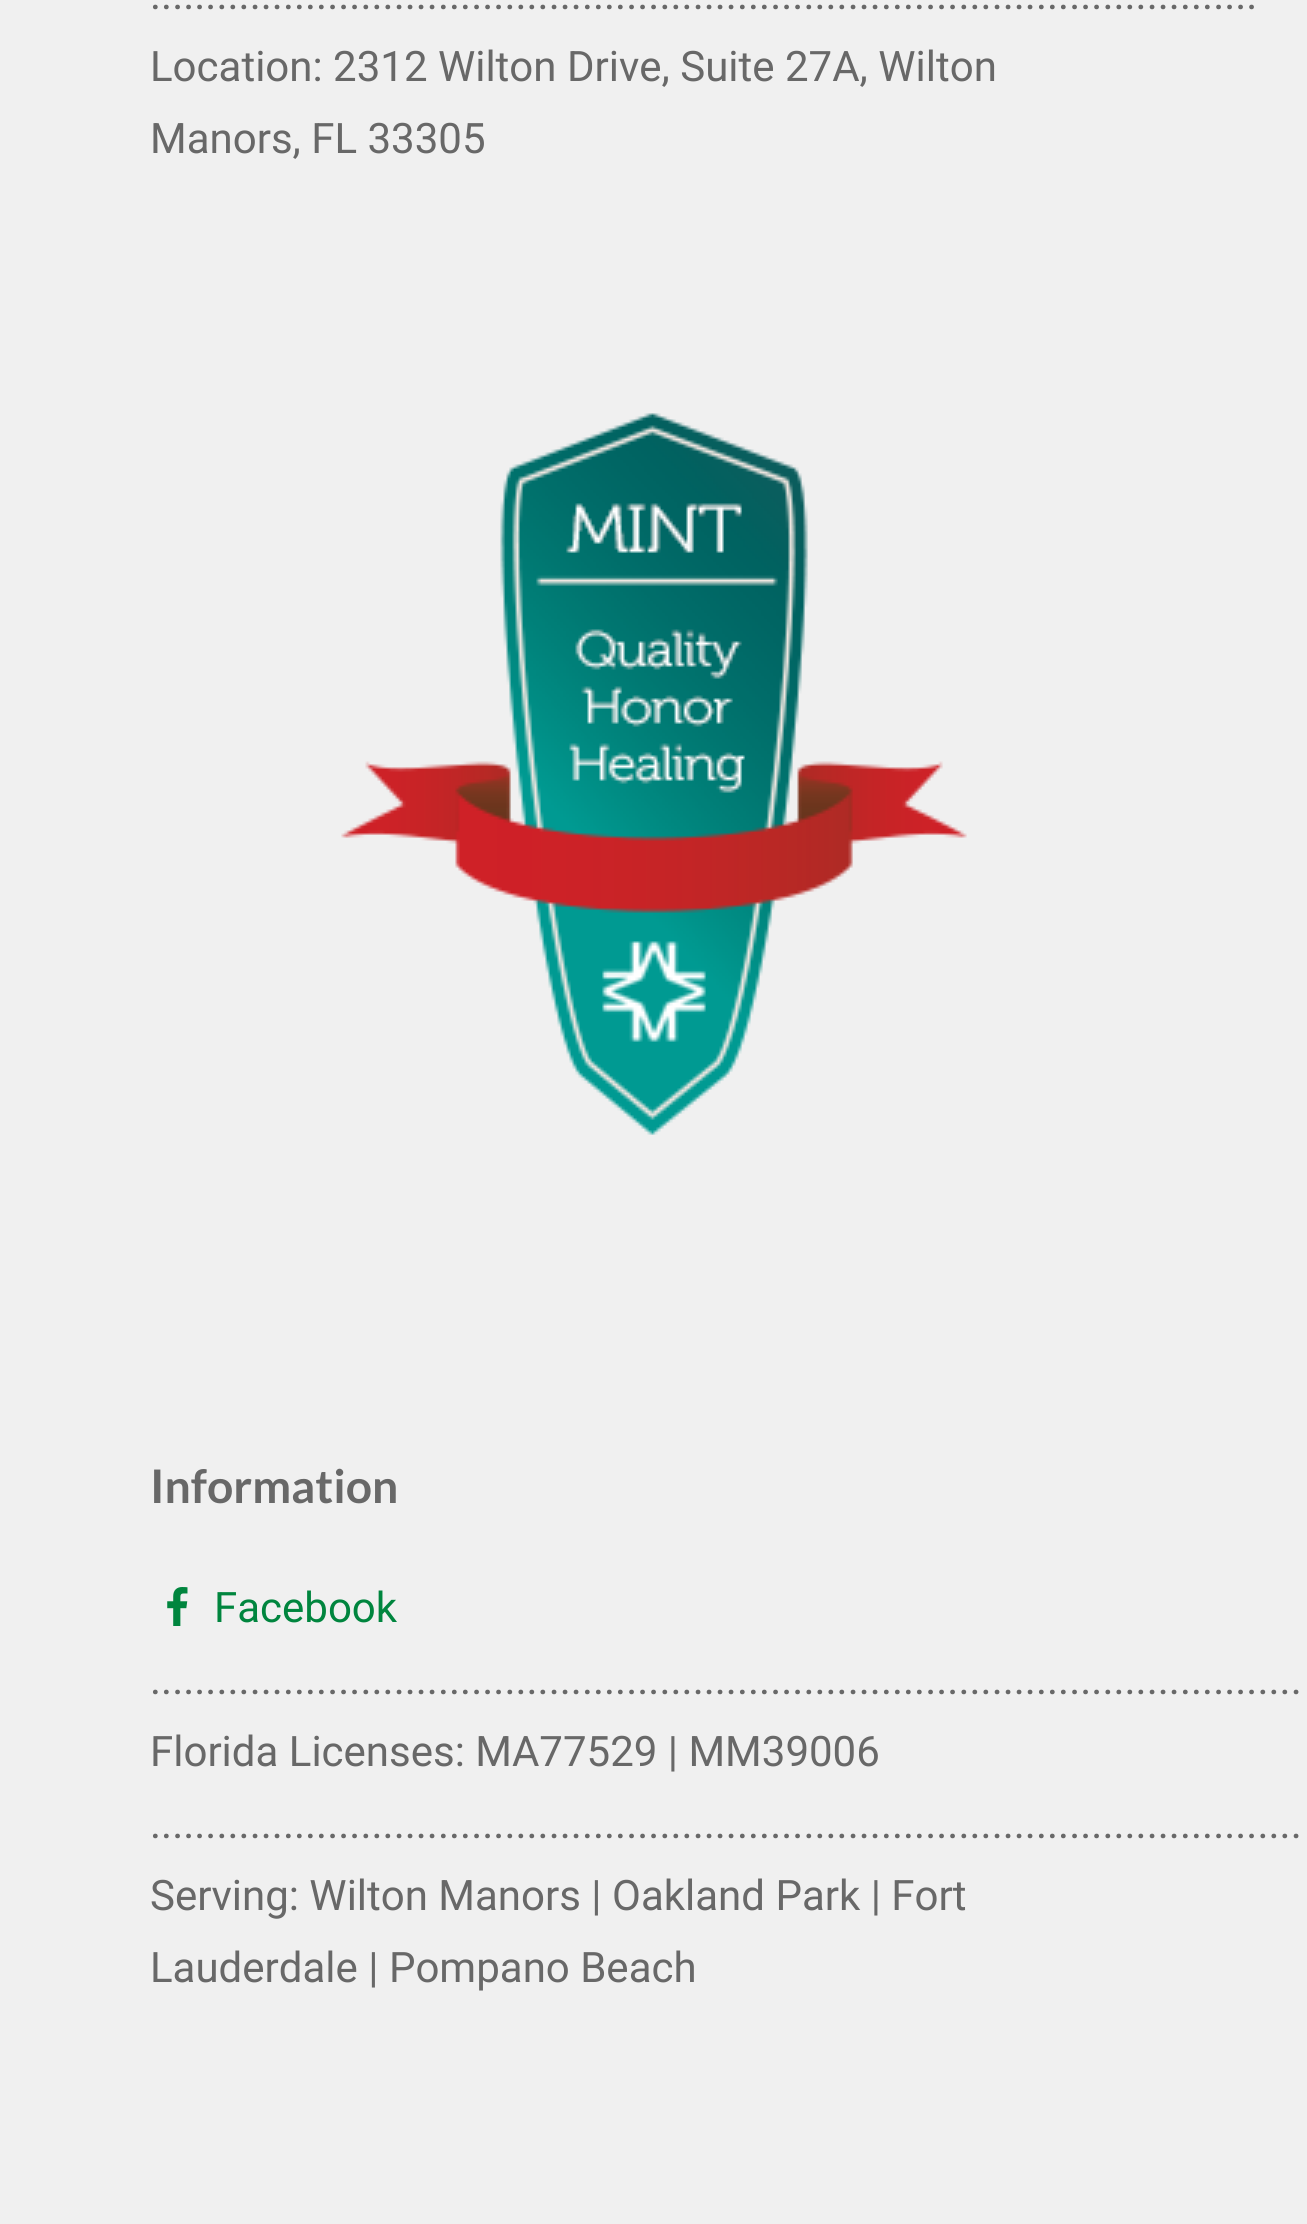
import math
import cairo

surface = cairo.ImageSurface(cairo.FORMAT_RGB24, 1307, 2224)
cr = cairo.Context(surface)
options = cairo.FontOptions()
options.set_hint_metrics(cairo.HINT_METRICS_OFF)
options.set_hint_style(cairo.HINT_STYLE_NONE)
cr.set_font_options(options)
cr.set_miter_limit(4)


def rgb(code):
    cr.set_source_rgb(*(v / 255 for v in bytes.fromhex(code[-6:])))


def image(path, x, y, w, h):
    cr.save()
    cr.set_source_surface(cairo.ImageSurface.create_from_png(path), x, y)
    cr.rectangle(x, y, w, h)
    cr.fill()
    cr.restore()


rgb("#f0f0f0")
cr.paint()
image("img/1.png", 341, 413, 626, 722)
image("img/2.png", 167, 1587, 21, 39)
cr.select_font_face("Roboto")
cr.set_font_size(42)
rgb("#686868")
for x, y, s in [
    (150, 9, "...................................................................................................."),
    (150, 81, "Location: 2312 Wilton Drive, Suite 27A, Wilton"),
    (150, 153, "Manors, FL 33305"),
]:
    cr.move_to(x, y)
    cr.show_text(s)
cr.select_font_face("Lato", cairo.FONT_SLANT_NORMAL, cairo.FONT_WEIGHT_BOLD)
cr.set_font_size(46.25)
cr.move_to(150, 1503)
cr.show_text("Information")
cr.select_font_face("Roboto")
cr.set_font_size(42)
rgb("#00853e")
cr.move_to(214, 1622)
cr.show_text("Facebook")
rgb("#686868")
for x, y, s in [
    (150, 1694, "........................................................................................................"),
    (150, 1766, "Florida Licenses: MA77529 | MM39006"),
    (150, 1838, "........................................................................................................"),
    (150, 1910, "Serving: Wilton Manors | Oakland Park | Fort"),
    (150, 1982, "Lauderdale | Pompano Beach"),
]:
    cr.move_to(x, y)
    cr.show_text(s)
surface.write_to_png("page.png")
